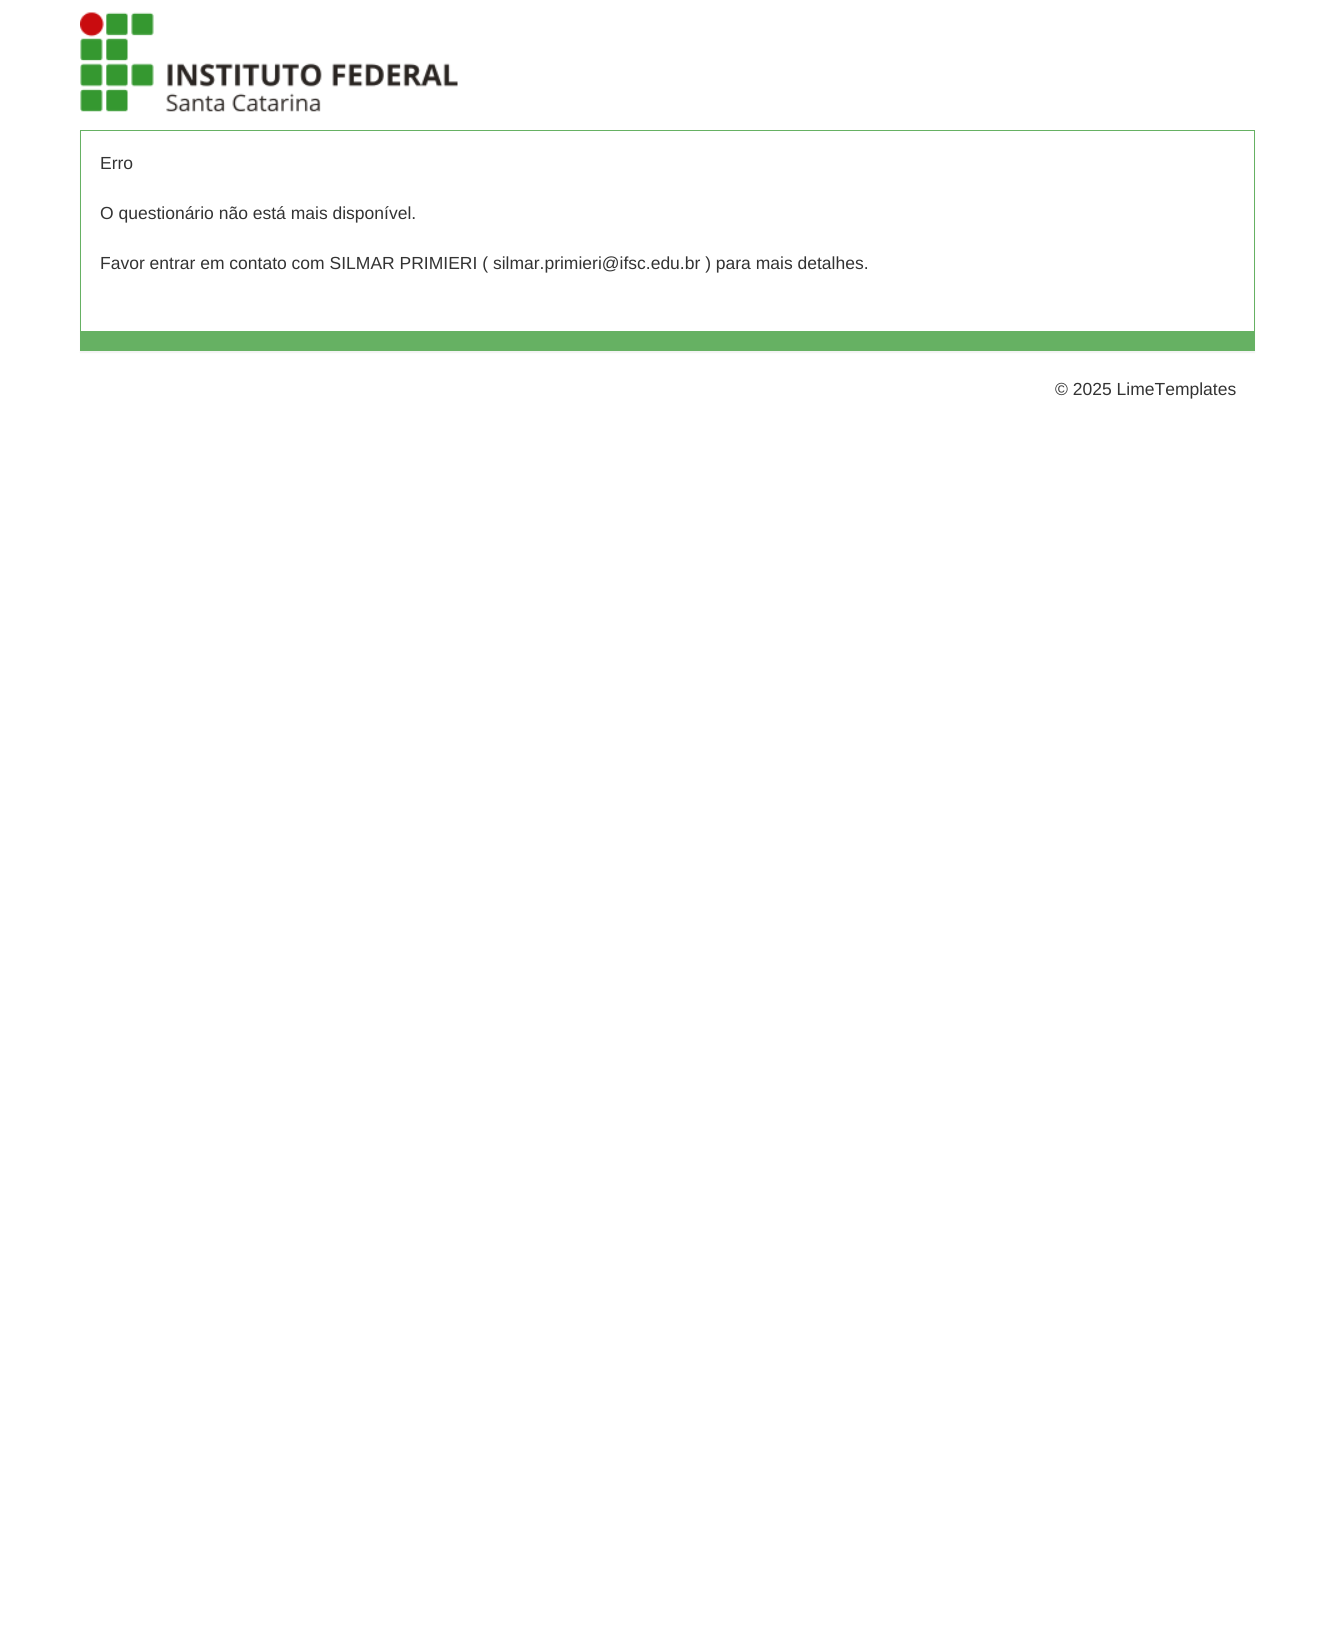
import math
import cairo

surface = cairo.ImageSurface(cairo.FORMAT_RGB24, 1334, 1647)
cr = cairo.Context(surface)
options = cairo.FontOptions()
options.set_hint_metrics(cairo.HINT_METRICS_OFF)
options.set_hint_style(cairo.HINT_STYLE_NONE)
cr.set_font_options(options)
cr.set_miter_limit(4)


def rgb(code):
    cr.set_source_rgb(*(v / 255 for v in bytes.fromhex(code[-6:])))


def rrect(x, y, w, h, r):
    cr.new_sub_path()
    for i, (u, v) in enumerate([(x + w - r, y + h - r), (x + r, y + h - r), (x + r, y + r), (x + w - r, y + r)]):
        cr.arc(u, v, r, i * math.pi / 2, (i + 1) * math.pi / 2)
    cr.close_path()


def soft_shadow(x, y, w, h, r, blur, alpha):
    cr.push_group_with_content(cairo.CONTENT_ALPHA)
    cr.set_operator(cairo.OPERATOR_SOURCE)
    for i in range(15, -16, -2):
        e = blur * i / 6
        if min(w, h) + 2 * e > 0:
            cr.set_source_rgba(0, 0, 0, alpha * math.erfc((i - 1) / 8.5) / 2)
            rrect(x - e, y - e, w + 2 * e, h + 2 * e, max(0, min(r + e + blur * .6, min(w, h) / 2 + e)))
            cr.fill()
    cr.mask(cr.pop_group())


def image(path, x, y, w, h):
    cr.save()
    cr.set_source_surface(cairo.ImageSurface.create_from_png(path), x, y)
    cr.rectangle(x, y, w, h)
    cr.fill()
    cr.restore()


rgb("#ffffff")
cr.paint()
image("img/1.png", 80, 12, 378, 100)
rgb("#000000")
soft_shadow(80, 131, 1175, 222, 0, 0.5, 0.05)
rgb("#66b163")
cr.rectangle(80, 130, 1175, 221)
cr.fill()
rgb("#ffffff")
cr.rectangle(81, 131, 1173, 200)
cr.fill()
cr.select_font_face("Liberation Sans")
cr.set_font_size(17.5)
rgb("#333333")
for x, y, s in [
    (100, 169, "Erro"),
    (100, 219, "O questionário não está mais disponível."),
    (100, 269, "Favor entrar em contato com SILMAR PRIMIERI ( silmar.primieri@ifsc.edu.br ) para mais detalhes."),
    (1055, 395, "© 2025 LimeTemplates"),
]:
    cr.move_to(x, y)
    cr.show_text(s)
surface.write_to_png("page.png")
